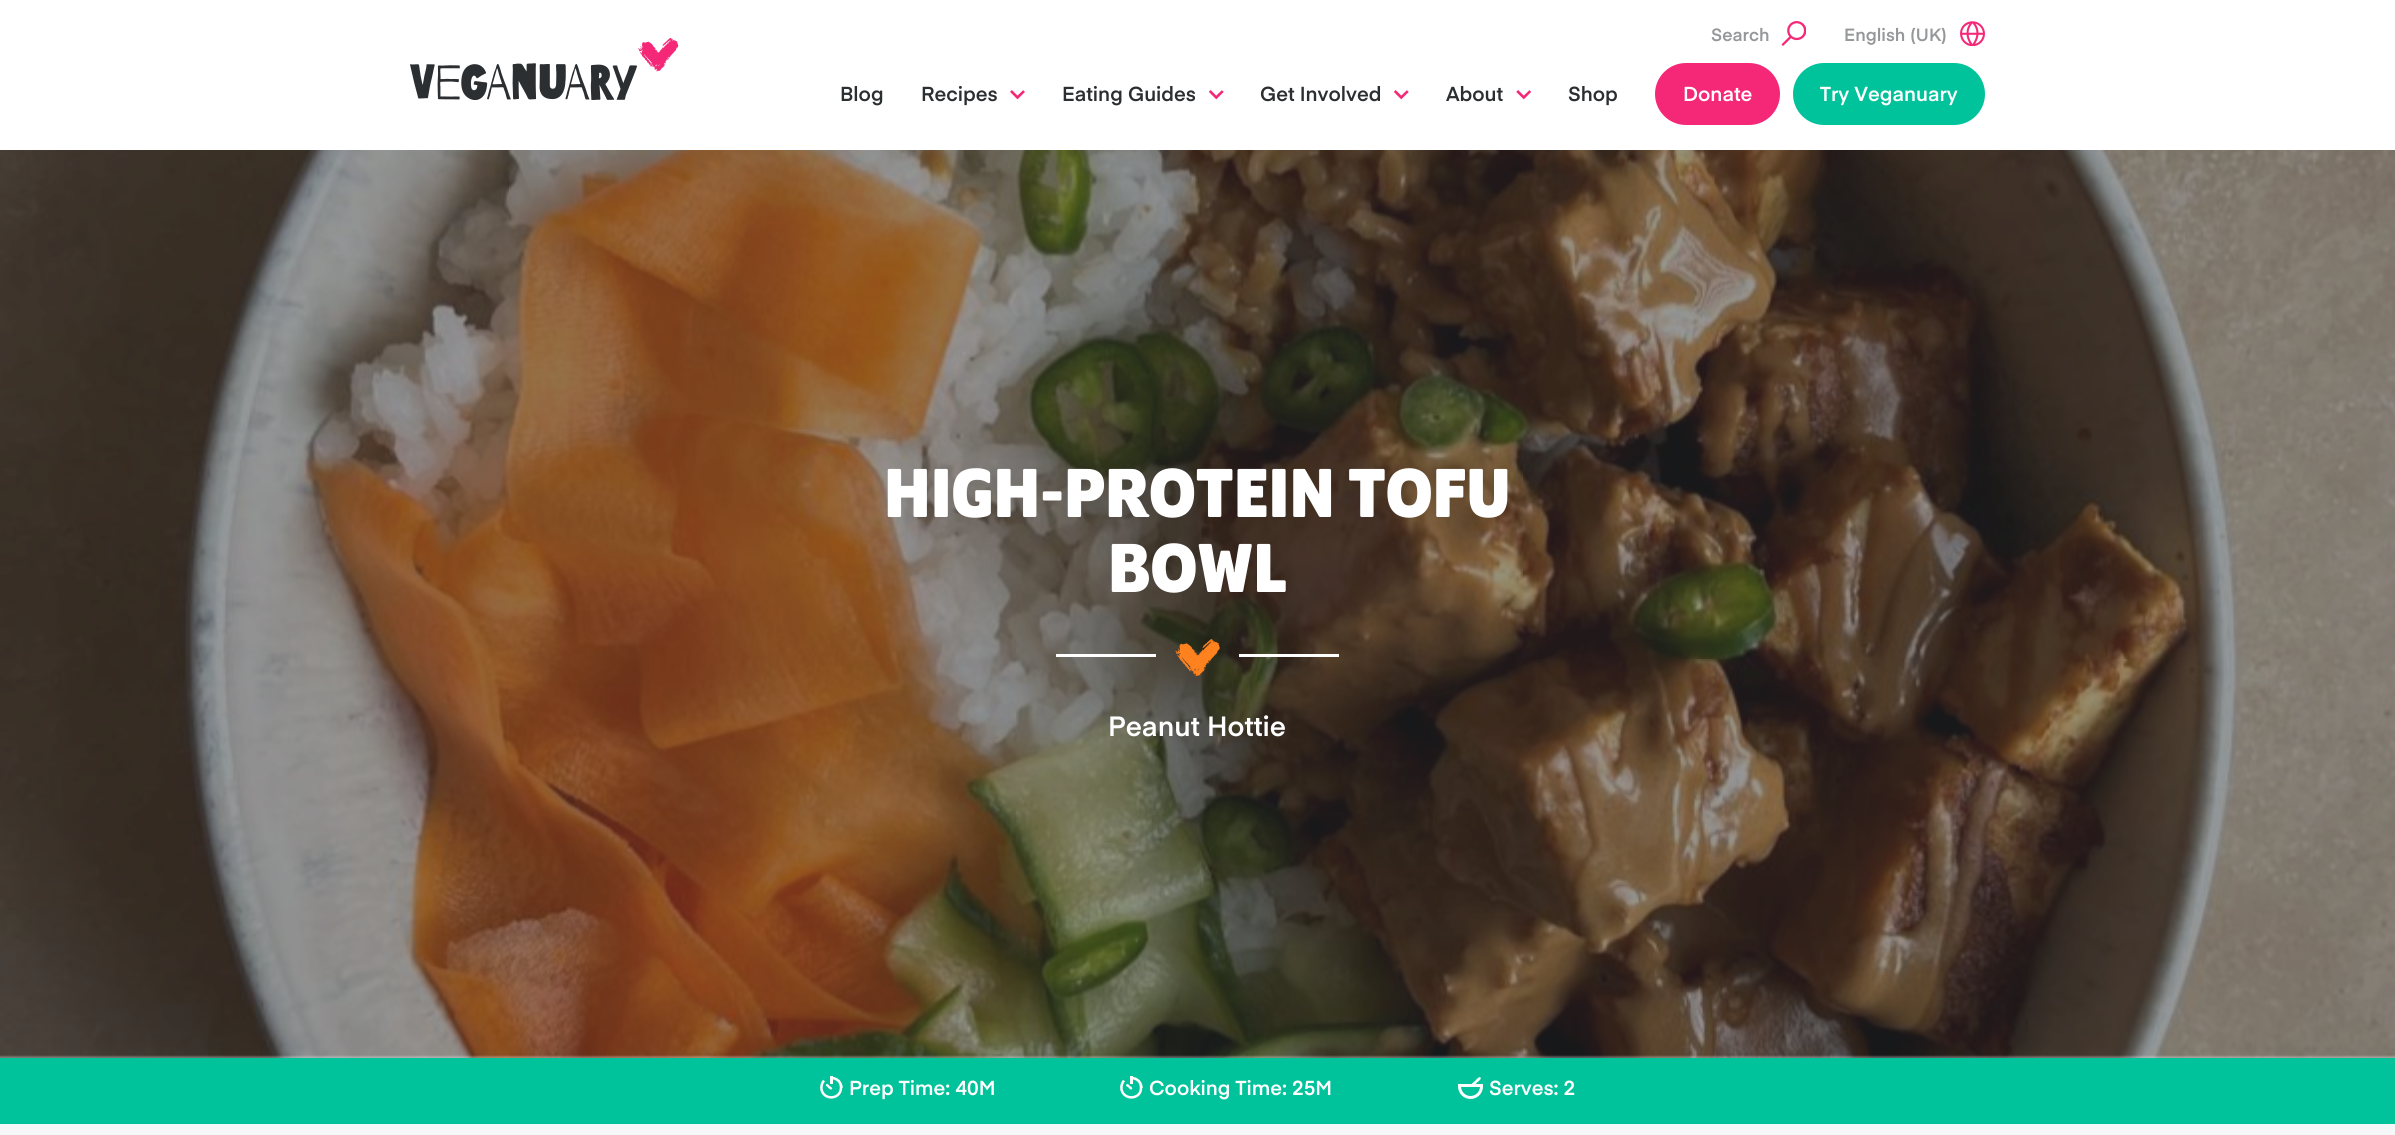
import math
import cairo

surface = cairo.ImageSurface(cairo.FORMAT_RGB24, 2395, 1135)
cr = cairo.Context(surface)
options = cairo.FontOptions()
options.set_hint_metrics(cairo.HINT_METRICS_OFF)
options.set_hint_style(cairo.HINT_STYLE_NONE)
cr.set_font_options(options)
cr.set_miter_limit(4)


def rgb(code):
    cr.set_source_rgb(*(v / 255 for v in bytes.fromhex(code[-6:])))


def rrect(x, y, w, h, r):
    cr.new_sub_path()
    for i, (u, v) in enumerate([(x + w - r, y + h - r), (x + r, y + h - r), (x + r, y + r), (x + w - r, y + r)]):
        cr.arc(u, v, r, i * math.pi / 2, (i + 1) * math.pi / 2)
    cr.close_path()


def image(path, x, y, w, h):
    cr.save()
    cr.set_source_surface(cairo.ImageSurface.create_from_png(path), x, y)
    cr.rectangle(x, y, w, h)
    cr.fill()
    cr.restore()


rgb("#f6f7f8")
cr.paint()
rgb("#ffffff")
cr.rectangle(0, 0, 2395, 150)
cr.fill()
image("img/1.png", 410, 38, 269, 62)
image("img/2.png", 1781, 21, 25, 25)
image("img/3.png", 1960, 21, 25, 25)
image("img/4.png", 1010, 90, 15, 10)
image("img/5.png", 1209, 90, 15, 10)
image("img/5.png", 1394, 90, 15, 10)
image("img/6.png", 1516, 90, 15, 10)
rgb("#f52878")
rrect(1656.5, 64.5, 122, 59, 29.5)
cr.fill_preserve()
cr.set_line_width(3)
cr.stroke()
rgb("#00c39b")
rrect(1794.5, 64.5, 189, 59, 29.5)
cr.fill_preserve()
cr.stroke()
image("img/7.png", 0, 150, 2395, 908)
rgb("#ffffff")
cr.rectangle(1056, 654, 100, 3)
cr.fill()
image("img/8.png", 1175, 639, 45, 37)
for x, y, w, h, color in [
    (1239, 654, 100, 3, "#ffffff"),
    (0, 1058, 2395, 66, "#00c39b"),
    (830, 1076, 3, 8, "#ffffff"),
]:
    rgb(color)
    cr.rectangle(x, y, w, h)
    cr.fill()
cr.new_path()
cr.move_to(838.5, 1080.5)
cr.curve_to(840, 1082.5, 841, 1085, 841, 1087.5)
cr.curve_to(841, 1099.5, 824, 1101, 821.5, 1089.5)
cr.curve_to(821, 1086, 822, 1083, 824, 1080.5)
cr.move_to(831.5, 1078)
cr.curve_to(837, 1078, 841.5, 1082.5, 841.5, 1088)
cr.set_line_width(2.5)
cr.stroke()
cr.new_path()
cr.move_to(826, 1084.5)
cr.curve_to(827, 1083, 829, 1085, 829.5, 1086)
cr.curve_to(830.5, 1086.5, 833, 1088, 832, 1089)
cr.curve_to(830.5, 1090.5, 829, 1088.5, 828, 1087.5)
cr.curve_to(827.5, 1087, 825, 1085.5, 826, 1084.5)
cr.close_path()
cr.fill()
cr.rectangle(1130, 1076, 3, 8)
cr.fill()
cr.new_path()
cr.move_to(1138.5, 1080.5)
cr.curve_to(1140, 1082.5, 1141, 1085, 1141, 1087.5)
cr.curve_to(1141.5, 1099.5, 1124, 1101, 1121.5, 1089.5)
cr.curve_to(1121, 1086, 1122, 1083, 1124, 1080.5)
cr.move_to(1131.5, 1078)
cr.curve_to(1137, 1078, 1141.5, 1082.5, 1141.5, 1088)
cr.stroke()
cr.new_path()
cr.move_to(1126.5, 1084.5)
cr.curve_to(1127.5, 1083, 1129, 1085, 1130, 1086)
cr.curve_to(1131, 1086.5, 1133, 1088, 1132, 1089)
cr.curve_to(1131, 1090.5, 1129, 1088.5, 1128.5, 1087.5)
cr.curve_to(1127.5, 1087, 1125, 1085.5, 1126.5, 1084.5)
cr.close_path()
cr.fill()
cr.new_path()
cr.move_to(1459.5, 1085.5)
cr.line_to(1481.5, 1085.5)
cr.line_to(1481.5, 1086.5)
cr.curve_to(1481.5, 1092.5, 1476.5, 1097.5, 1470.5, 1097.5)
cr.curve_to(1464.5, 1097.5, 1459.5, 1092.5, 1459.5, 1086.5)
cr.close_path()
cr.set_line_width(3)
cr.stroke()
cr.new_path()
cr.move_to(1480.5, 1077.5)
cr.curve_to(1482, 1079, 1477.5, 1082, 1477, 1082.5)
cr.curve_to(1476, 1083.5, 1473, 1087.5, 1471.5, 1086)
cr.curve_to(1470, 1084.5, 1474.5, 1081.5, 1475, 1081)
cr.curve_to(1476, 1080, 1479, 1076, 1480.5, 1077.5)
cr.close_path()
cr.fill()
cr.select_font_face("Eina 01 SemiBold")
cr.set_font_size(17.5)
rgb("#959798")
cr.move_to(1711, 41)
cr.show_text("Search")
cr.move_to(1844, 41)
cr.show_text("English (UK)")
cr.set_font_size(20)
rgb("#2c2f32")
for x, y, s in [
    (840, 101, "Blog"),
    (921, 101, "Recipes"),
    (1062, 101, "Eating Guides"),
    (1260, 101, "Get Involved"),
    (1446, 101, "About"),
    (1568, 101, "Shop"),
]:
    cr.move_to(x, y)
    cr.show_text(s)
rgb("#ffffff")
cr.move_to(1683, 101)
cr.show_text("Donate")
cr.move_to(1820, 101)
cr.show_text("Try Veganuary")
cr.select_font_face("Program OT", cairo.FONT_SLANT_NORMAL, cairo.FONT_WEIGHT_BOLD)
cr.set_font_size(75)
cr.move_to(884, 517)
cr.show_text("HIGH-PROTEIN TOFU")
cr.move_to(1108, 592)
cr.show_text("BOWL")
cr.select_font_face("Eina 01 SemiBold")
cr.set_font_size(27.5)
cr.move_to(1108, 736)
cr.show_text("Peanut Hottie")
cr.set_font_size(20)
for x, y, s in [
    (849, 1095, "Prep Time: 40M"),
    (1149, 1095, "Cooking Time: 25M"),
    (1489, 1095, "Serves: 2"),
]:
    cr.move_to(x, y)
    cr.show_text(s)
surface.write_to_png("page.png")
